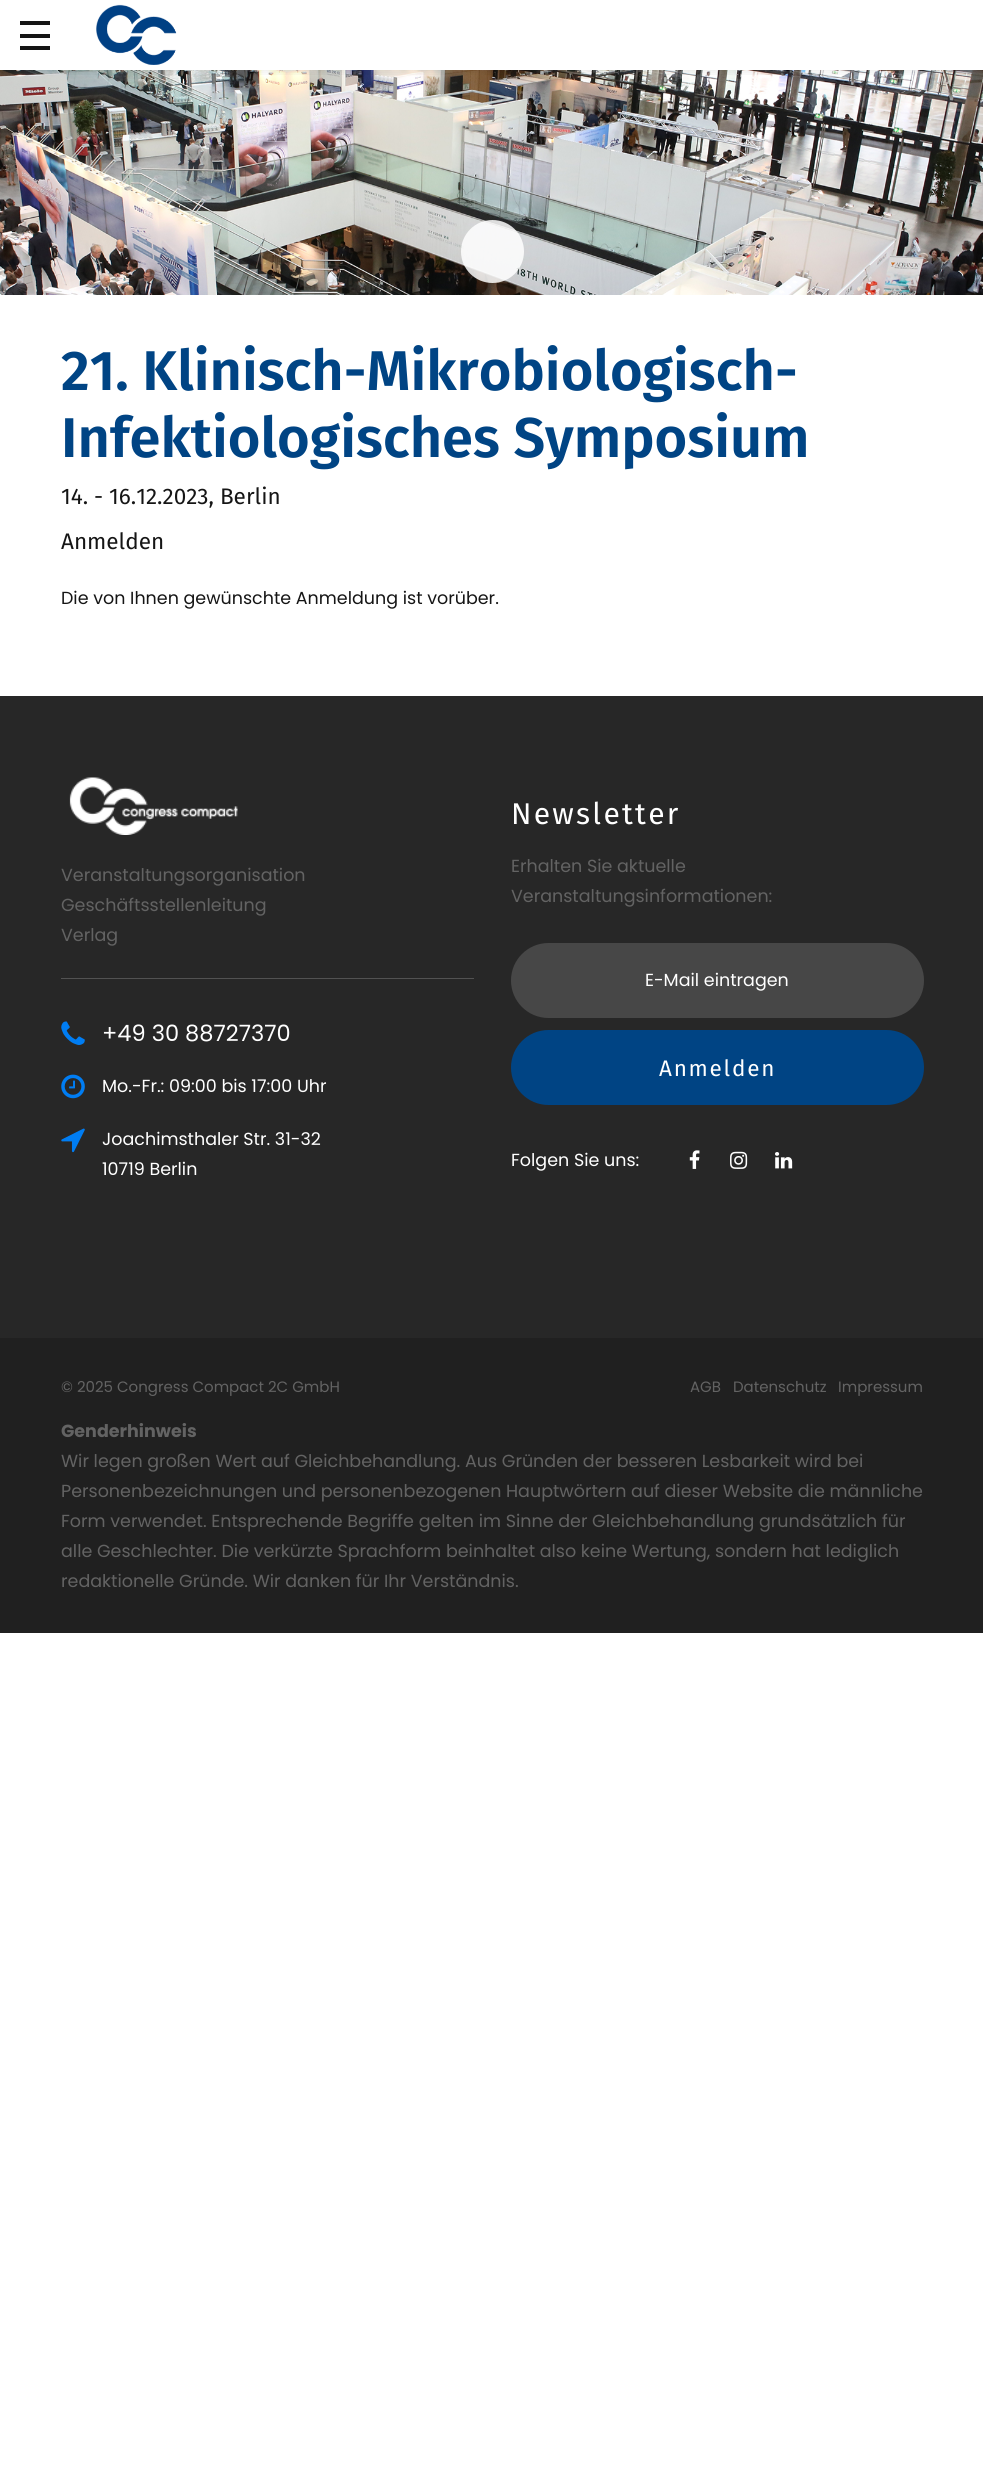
import math
import cairo

surface = cairo.ImageSurface(cairo.FORMAT_RGB24, 983, 2471)
cr = cairo.Context(surface)
options = cairo.FontOptions()
options.set_hint_metrics(cairo.HINT_METRICS_OFF)
options.set_hint_style(cairo.HINT_STYLE_NONE)
cr.set_font_options(options)
cr.set_miter_limit(4)


def rgb(code):
    cr.set_source_rgb(*(v / 255 for v in bytes.fromhex(code[-6:])))


def tracked(x, y, s, letter, word):
    cr.move_to(x, y)
    for ch in s:
        cr.show_text(ch)
        cr.rel_move_to(letter + word * (ch == ' '), 0)


def rrect(x, y, w, h, r):
    cr.new_sub_path()
    for i, (u, v) in enumerate([(x + w - r, y + h - r), (x + r, y + h - r), (x + r, y + r), (x + w - r, y + r)]):
        cr.arc(u, v, r, i * math.pi / 2, (i + 1) * math.pi / 2)
    cr.close_path()


def soft_shadow(x, y, w, h, r, blur, alpha):
    cr.push_group_with_content(cairo.CONTENT_ALPHA)
    cr.set_operator(cairo.OPERATOR_SOURCE)
    for i in range(15, -16, -2):
        e = blur * i / 6
        if min(w, h) + 2 * e > 0:
            cr.set_source_rgba(0, 0, 0, alpha * math.erfc((i - 1) / 8.5) / 2)
            rrect(x - e, y - e, w + 2 * e, h + 2 * e, max(0, min(r + e + blur * .6, min(w, h) / 2 + e)))
            cr.fill()
    cr.mask(cr.pop_group())


def image(path, x, y, w, h):
    cr.save()
    cr.set_source_surface(cairo.ImageSurface.create_from_png(path), x, y)
    cr.rectangle(x, y, w, h)
    cr.fill()
    cr.restore()


rgb("#ffffff")
cr.paint()
image("img/2.png", 0, 70, 983, 225)
cr.save()
cr.rectangle(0, 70, 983, 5)
cr.clip()
rgb("#000000")
soft_shadow(0, 0, 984, 70, 0, 6, 0.1)
cr.restore()
for x, y, w, h, color in [
    (20, 34, 30, 4, "#151515"),
    (20, 21, 30, 4, "#151515"),
    (20, 46, 30, 4, "#151515"),
]:
    rgb(color)
    cr.rectangle(x, y, w, h)
    cr.fill()
image("img/1.png", 96, 4, 81, 61)
cr.set_source_rgba(1, 1, 1, 0.84)
cr.arc(492.5, 251.5, 31.5, 0, 2 * math.pi)
cr.fill()
rgb("#272727")
cr.rectangle(0, 696, 983, 642)
cr.fill()
image("img/3.png", 69, 777, 169, 58)
rgb("#525252")
cr.rectangle(61, 978, 413, 1)
cr.fill()
image("img/4.png", 61, 1021, 24, 24)
image("img/5.png", 61, 1074, 24, 25)
image("img/6.png", 61, 1128, 24, 25)
rgb("#474747")
rrect(511, 943, 413, 75, 37.5)
cr.fill()
rgb("#004484")
rrect(512.5, 1031.5, 410, 72, 36)
cr.fill_preserve()
cr.set_line_width(3)
cr.stroke()
image("img/7.png", 689, 1150, 11, 19)
image("img/8.png", 730, 1151, 18, 18)
image("img/9.png", 775, 1152, 18, 17)
rgb("#202020")
cr.rectangle(0, 1338, 983, 295)
cr.fill()
cr.select_font_face("Fira Sans SemiBold")
cr.set_font_size(56)
rgb("#004484")
cr.move_to(61, 390)
cr.show_text("21. Klinisch-Mikrobiologisch-")
cr.move_to(61, 457)
cr.show_text("Infektiologisches Symposium")
cr.select_font_face("Fira Sans")
cr.set_font_size(22.5)
rgb("#151515")
cr.move_to(61, 504)
cr.show_text("14. - 16.12.2023, Berlin")
cr.move_to(61, 549)
cr.show_text("Anmelden")
cr.select_font_face("Poppins")
cr.set_font_size(17.5)
cr.move_to(61, 604)
cr.show_text("Die von Ihnen gewünschte Anmeldung ist vorüber.")
rgb("#636363")
for x, y, s in [
    (61, 881, "Veranstaltungsorganisation"),
    (61, 911, "Geschäftsstellenleitung"),
    (61, 941, "Verlag"),
]:
    cr.move_to(x, y)
    cr.show_text(s)
cr.set_font_size(22.5)
rgb("#ffffff")
cr.move_to(102, 1041)
cr.show_text("+49 30 88727370")
cr.set_font_size(17.5)
for x, y, s in [
    (102, 1092, "Mo.-Fr.: 09:00 bis 17:00 Uhr"),
    (102, 1145, "Joachimsthaler Str. 31-32"),
    (102, 1175, "10719 Berlin"),
]:
    cr.move_to(x, y)
    cr.show_text(s)
cr.select_font_face("Fira Sans")
cr.set_font_size(30)
tracked(511, 824, "Newsletter", 2.25, 0)
cr.select_font_face("Poppins")
cr.set_font_size(17.5)
rgb("#636363")
cr.move_to(511, 872)
cr.show_text("Erhalten Sie aktuelle")
cr.move_to(511, 902)
cr.show_text("Veranstaltungsinformationen:")
rgb("#ffffff")
cr.move_to(645, 986)
cr.show_text("E-Mail eintragen")
cr.select_font_face("Fira Sans")
cr.set_font_size(22.5)
tracked(659, 1076, "Anmelden", 1.75, 0)
cr.select_font_face("Poppins")
cr.set_font_size(17.5)
cr.move_to(511, 1166)
cr.show_text("Folgen Sie uns:")
cr.set_font_size(15)
rgb("#636363")
for x, y, s in [
    (61, 1392, "© 2025 Congress Compact 2C GmbH"),
    (690, 1392, "AGB"),
    (733, 1392, "Datenschutz"),
    (838, 1392, "Impressum"),
]:
    cr.move_to(x, y)
    cr.show_text(s)
cr.select_font_face("Poppins", cairo.FONT_SLANT_NORMAL, cairo.FONT_WEIGHT_BOLD)
cr.set_font_size(17.5)
cr.move_to(61, 1437)
cr.show_text("Genderhinweis")
cr.select_font_face("Poppins")
for x, y, s in [
    (61, 1467, "Wir legen großen Wert auf Gleichbehandlung. Aus Gründen der besseren Lesbarkeit wird bei"),
    (61, 1497, "Personenbezeichnungen und personenbezogenen Hauptwörtern auf dieser Website die männliche"),
    (61, 1527, "Form verwendet. Entsprechende Begriffe gelten im Sinne der Gleichbehandlung grundsätzlich für"),
    (61, 1557, "alle Geschlechter. Die verkürzte Sprachform beinhaltet also keine Wertung, sondern hat lediglich"),
    (61, 1587, "redaktionelle Gründe. Wir danken für Ihr Verständnis."),
]:
    cr.move_to(x, y)
    cr.show_text(s)
surface.write_to_png("page.png")
